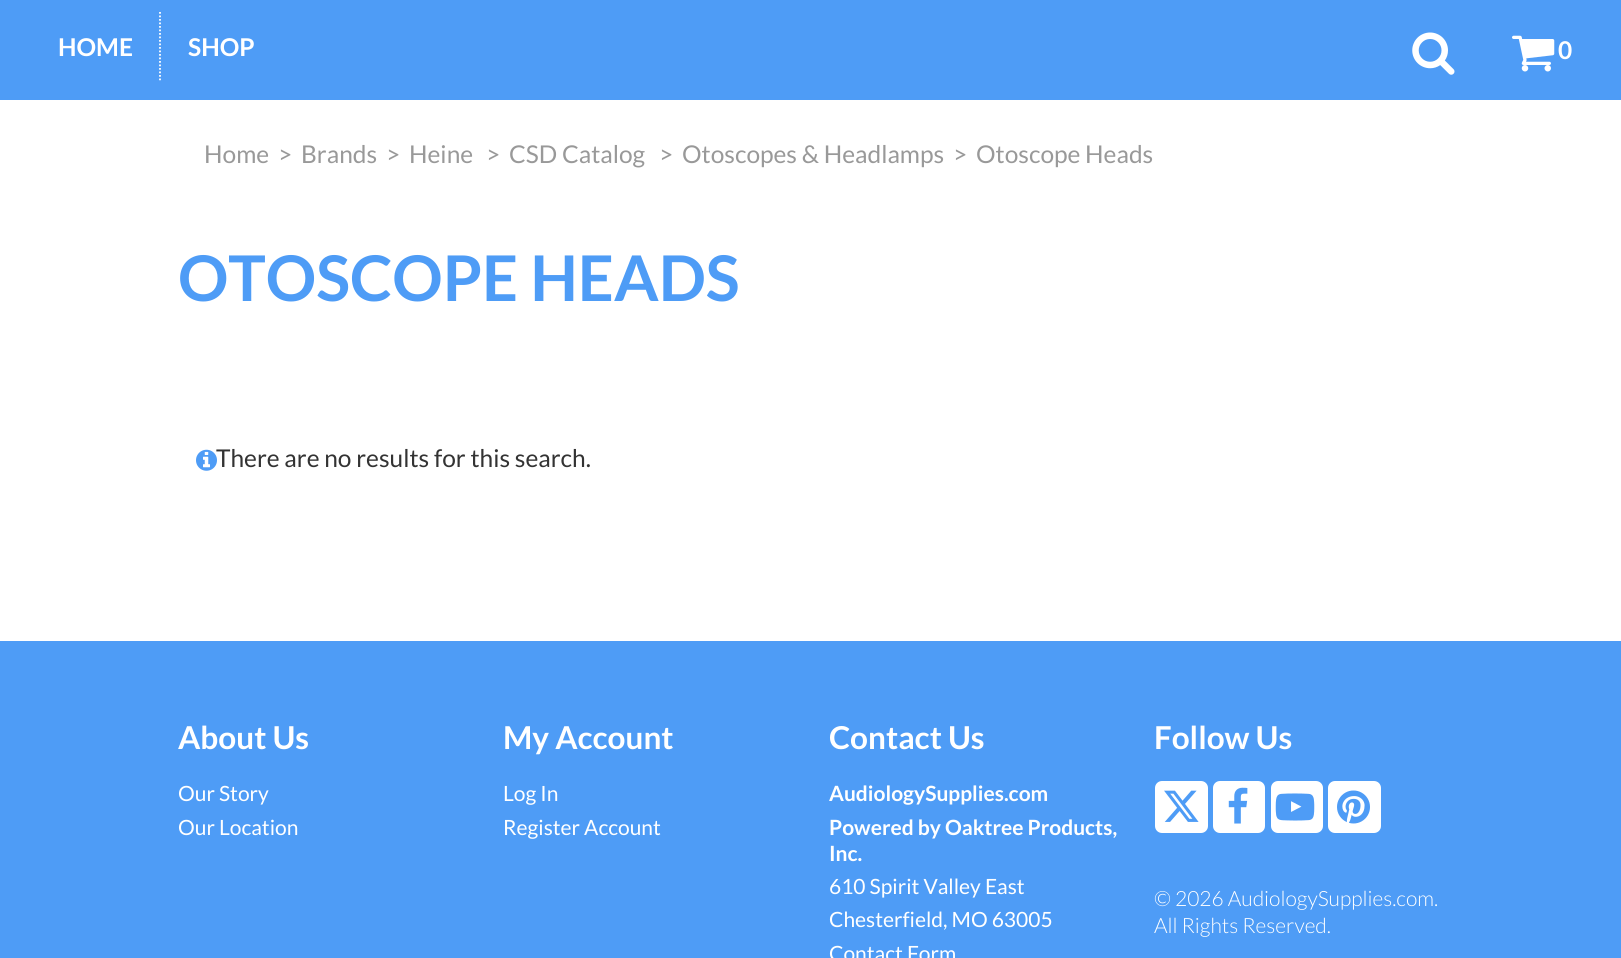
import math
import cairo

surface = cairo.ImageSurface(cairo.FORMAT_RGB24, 1621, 958)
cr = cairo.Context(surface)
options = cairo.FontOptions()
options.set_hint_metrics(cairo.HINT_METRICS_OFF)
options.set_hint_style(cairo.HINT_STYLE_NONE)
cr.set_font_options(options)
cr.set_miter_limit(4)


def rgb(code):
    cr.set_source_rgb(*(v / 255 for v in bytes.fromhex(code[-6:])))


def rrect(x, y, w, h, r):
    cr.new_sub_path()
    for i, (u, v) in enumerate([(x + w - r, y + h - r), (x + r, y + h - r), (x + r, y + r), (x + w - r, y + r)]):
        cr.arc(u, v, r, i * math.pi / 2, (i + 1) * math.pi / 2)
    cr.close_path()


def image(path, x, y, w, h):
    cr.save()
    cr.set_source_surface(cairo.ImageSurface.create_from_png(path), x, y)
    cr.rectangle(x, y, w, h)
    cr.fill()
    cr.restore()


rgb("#ffffff")
cr.paint()
rgb("#4e9cf6")
cr.rectangle(0, 0, 1621, 100)
cr.fill()
cr.new_path()
cr.move_to(160, 12)
cr.line_to(160, 80.5)
rgb("#ffffff")
cr.set_line_width(1.8)
cr.set_dash([1.75, 1.75])
cr.stroke()
image("img/1.png", 1412, 32, 43, 43)
image("img/2.png", 1512, 35, 43, 37)
image("img/3.png", 196, 449, 21, 22)
rgb("#4e9cf6")
cr.rectangle(0, 641, 1621, 317)
cr.fill()
rgb("#ffffff")
rrect(1155, 781, 53, 52, 7)
cr.fill()
image("img/4.png", 1164, 790, 35, 32)
rrect(1213, 781, 52, 52, 7)
cr.fill()
image("img/5.png", 1228, 787, 20, 37)
rrect(1271, 781, 52, 52, 7)
cr.fill()
image("img/6.png", 1275, 793, 40, 28)
rrect(1328, 781, 53, 52, 7)
cr.fill()
image("img/7.png", 1337, 790, 33, 34)
cr.select_font_face("Lato", cairo.FONT_SLANT_NORMAL, cairo.FONT_WEIGHT_BOLD)
cr.set_font_size(24.5)
for x, y, s in [
    (58, 56, "HOME"),
    (188, 56, "SHOP"),
    (1558, 59, "0"),
]:
    cr.move_to(x, y)
    cr.show_text(s)
cr.select_font_face("Lato")
rgb("#999999")
for x, y, s in [
    (204, 163, "Home"),
    (278, 163, ">"),
    (301, 163, "Brands"),
    (386, 163, ">"),
    (409, 163, "Heine"),
    (486, 163, ">"),
    (509, 163, "CSD Catalog"),
    (659, 163, ">"),
    (682, 163, "Otoscopes & Headlamps"),
    (953, 163, ">"),
    (976, 163, "Otoscope Heads"),
]:
    cr.move_to(x, y)
    cr.show_text(s)
cr.select_font_face("Lato", cairo.FONT_SLANT_NORMAL, cairo.FONT_WEIGHT_BOLD)
cr.set_font_size(63)
rgb("#4e9cf6")
cr.move_to(178, 301)
cr.show_text("OTOSCOPE HEADS")
cr.select_font_face("Lato")
cr.set_font_size(24.5)
rgb("#333333")
cr.move_to(216, 467)
cr.show_text("There are no results for this search.")
cr.select_font_face("Lato", cairo.FONT_SLANT_NORMAL, cairo.FONT_WEIGHT_BOLD)
cr.set_font_size(31.5)
rgb("#ffffff")
cr.move_to(178, 749)
cr.show_text("About Us")
cr.select_font_face("Lato")
cr.set_font_size(21)
cr.move_to(178, 801)
cr.show_text("Our Story")
cr.move_to(178, 835)
cr.show_text("Our Location")
cr.select_font_face("Lato", cairo.FONT_SLANT_NORMAL, cairo.FONT_WEIGHT_BOLD)
cr.set_font_size(31.5)
cr.move_to(503, 749)
cr.show_text("My Account")
cr.select_font_face("Lato")
cr.set_font_size(21)
cr.move_to(503, 801)
cr.show_text("Log In")
cr.move_to(503, 835)
cr.show_text("Register Account")
cr.select_font_face("Lato", cairo.FONT_SLANT_NORMAL, cairo.FONT_WEIGHT_BOLD)
cr.set_font_size(31.5)
cr.move_to(829, 749)
cr.show_text("Contact Us")
cr.set_font_size(21)
for x, y, s in [
    (829, 801, "AudiologySupplies.com"),
    (829, 835, "Powered by Oaktree Products,"),
    (829, 861, "Inc."),
]:
    cr.move_to(x, y)
    cr.show_text(s)
cr.select_font_face("Lato")
for x, y, s in [
    (829, 894, "610 Spirit Valley East"),
    (829, 927, "Chesterfield, MO 63005"),
    (829, 961, "Contact Form"),
]:
    cr.move_to(x, y)
    cr.show_text(s)
cr.select_font_face("Lato", cairo.FONT_SLANT_NORMAL, cairo.FONT_WEIGHT_BOLD)
cr.set_font_size(31.5)
cr.move_to(1154, 749)
cr.show_text("Follow Us")
cr.select_font_face("Lato Light")
cr.set_font_size(21)
cr.move_to(1154, 906)
cr.show_text("© 2026 AudiologySupplies.com.")
cr.move_to(1154, 933)
cr.show_text("All Rights Reserved.")
surface.write_to_png("page.png")
